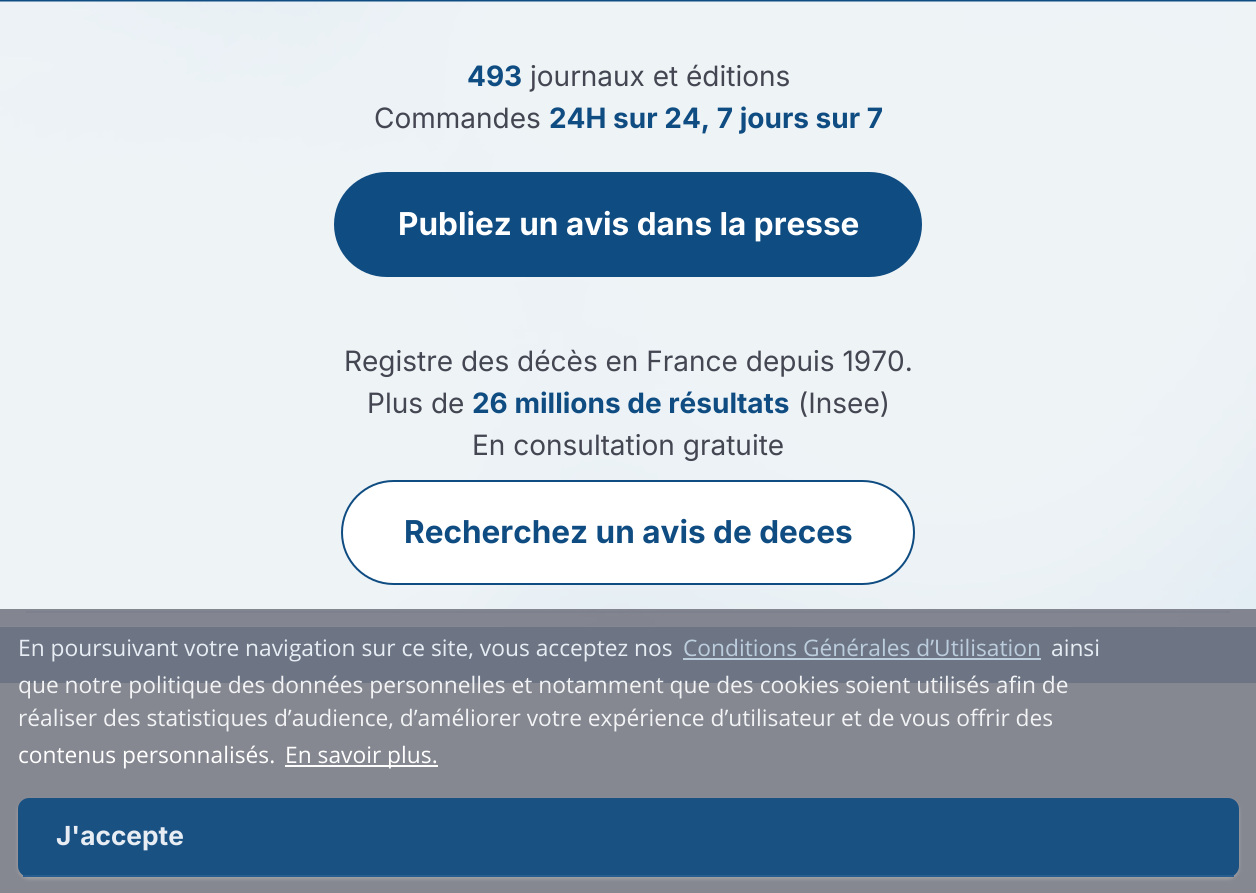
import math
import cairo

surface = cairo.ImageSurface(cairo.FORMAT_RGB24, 1256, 893)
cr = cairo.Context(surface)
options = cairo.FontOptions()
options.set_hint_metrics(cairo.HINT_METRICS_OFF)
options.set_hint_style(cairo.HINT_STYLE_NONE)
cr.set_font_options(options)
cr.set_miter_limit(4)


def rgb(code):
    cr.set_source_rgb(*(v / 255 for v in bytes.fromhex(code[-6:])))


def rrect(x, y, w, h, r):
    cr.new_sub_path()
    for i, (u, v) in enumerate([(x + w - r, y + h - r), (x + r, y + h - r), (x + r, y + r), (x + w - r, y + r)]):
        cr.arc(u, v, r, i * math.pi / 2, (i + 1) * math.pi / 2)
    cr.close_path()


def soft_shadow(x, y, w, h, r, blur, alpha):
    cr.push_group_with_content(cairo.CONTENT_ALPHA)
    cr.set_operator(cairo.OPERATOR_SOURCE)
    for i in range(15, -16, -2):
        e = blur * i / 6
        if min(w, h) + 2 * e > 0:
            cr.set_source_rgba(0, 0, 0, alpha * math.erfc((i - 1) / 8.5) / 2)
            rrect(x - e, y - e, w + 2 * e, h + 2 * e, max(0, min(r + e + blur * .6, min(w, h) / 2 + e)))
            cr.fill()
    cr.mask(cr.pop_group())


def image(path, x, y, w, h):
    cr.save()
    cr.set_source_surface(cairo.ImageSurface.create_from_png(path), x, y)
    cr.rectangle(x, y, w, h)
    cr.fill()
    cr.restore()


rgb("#ffffff")
cr.paint()
rgb("#0f4c82")
cr.rectangle(0, 0, 1256, 2)
cr.fill()
image("img/1.png", 0, 1, 1256, 626)
rrect(335, 173, 586, 103, 51.5)
cr.fill_preserve()
cr.stroke()
rgb("#ffffff")
rrect(342, 481, 572, 103, 51.5)
cr.fill_preserve()
rgb("#0f4c82")
cr.stroke()
cr.set_source_rgba(0.059, 0.298, 0.51, 0.3)
cr.rectangle(26, 611, 1204, 2)
cr.fill()
rgb("#0f4c82")
cr.rectangle(0, 627, 1256, 56)
cr.fill()
cr.set_source_rgba(0.471, 0.478, 0.522, 0.9)
cr.rectangle(0, 609, 1256, 284)
cr.fill()
rgb("#bccddc")
cr.rectangle(683, 658, 358, 2)
cr.fill()
rgb("#ffffff")
cr.rectangle(285, 765, 153, 2)
cr.fill()
cr.save()
cr.set_fill_rule(cairo.FILL_RULE_EVEN_ODD)
cr.new_path()
cr.move_to(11, 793)
cr.line_to(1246, 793)
cr.line_to(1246, 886)
cr.line_to(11, 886)
cr.close_path()
cr.move_to(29, 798)
cr.line_to(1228, 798)
cr.curve_to(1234, 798, 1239, 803, 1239, 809)
cr.line_to(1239, 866)
cr.curve_to(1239, 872, 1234, 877, 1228, 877)
cr.line_to(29, 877)
cr.curve_to(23, 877, 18, 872, 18, 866)
cr.line_to(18, 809)
cr.curve_to(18, 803, 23, 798, 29, 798)
cr.close_path()
cr.clip()
rgb("#a3a3a3")
soft_shadow(18, 800, 1221, 79, 11, 2, 1)
cr.restore()
cr.set_source_rgba(0.059, 0.298, 0.51, 0.9)
rrect(18, 798, 1221, 79, 11)
cr.fill()
rgb("#275e8f")
cr.rectangle(23, 875, 1211, 2)
cr.fill()
cr.select_font_face("Inter", cairo.FONT_SLANT_NORMAL, cairo.FONT_WEIGHT_BOLD)
cr.set_font_size(28)
rgb("#0f4c82")
cr.move_to(467, 86)
cr.show_text("493")
cr.select_font_face("Inter")
rgb("#444652")
cr.move_to(530, 86)
cr.show_text("journaux et éditions")
cr.move_to(374, 128)
cr.show_text("Commandes")
cr.select_font_face("Inter", cairo.FONT_SLANT_NORMAL, cairo.FONT_WEIGHT_BOLD)
rgb("#0f4c82")
cr.move_to(549, 128)
cr.show_text("24H sur 24, 7 jours sur 7")
cr.set_font_size(31.5)
rgb("#ffffff")
cr.move_to(398, 235)
cr.show_text("Publiez un avis dans la presse")
cr.select_font_face("Inter")
cr.set_font_size(28)
rgb("#444652")
cr.move_to(344, 371)
cr.show_text("Registre des décès en France depuis 1970.")
cr.move_to(367, 413)
cr.show_text("Plus de")
cr.select_font_face("Inter", cairo.FONT_SLANT_NORMAL, cairo.FONT_WEIGHT_BOLD)
rgb("#0f4c82")
cr.move_to(472, 413)
cr.show_text("26 millions de résultats")
cr.select_font_face("Inter")
rgb("#444652")
cr.move_to(798, 413)
cr.show_text("(Insee)")
cr.move_to(472, 455)
cr.show_text("En consultation gratuite")
cr.select_font_face("Inter", cairo.FONT_SLANT_NORMAL, cairo.FONT_WEIGHT_BOLD)
cr.set_font_size(31.5)
rgb("#0f4c82")
cr.move_to(404, 543)
cr.show_text("Recherchez un avis de deces")
cr.select_font_face("Open Sans")
cr.set_font_size(22.75)
rgb("#e7edf3")
cr.move_to(18, 656)
cr.show_text("En poursuivant votre navigation sur ce site, vous acceptez nos")
rgb("#bccddc")
cr.move_to(683, 656)
cr.show_text("Conditions Générales d’Utilisation")
rgb("#e7edf3")
cr.move_to(1051, 656)
cr.show_text("ainsi")
rgb("#f2f3f4")
cr.move_to(18, 693)
cr.show_text("que notre politique des données personnelles et notamment que des cookies soient utilisés afin de")
cr.move_to(18, 726)
cr.show_text("réaliser des statistiques d’audience, d’améliorer votre expérience d’utilisateur et de vous offrir des")
rgb("#ffffff")
cr.move_to(18, 763)
cr.show_text("contenus personnalisés.")
cr.move_to(285, 763)
cr.show_text("En savoir plus.")
cr.select_font_face("Inter", cairo.FONT_SLANT_NORMAL, cairo.FONT_WEIGHT_BOLD)
cr.set_font_size(26.25)
rgb("#e7edf3")
cr.move_to(56, 845)
cr.show_text("J'accepte")
surface.write_to_png("page.png")
